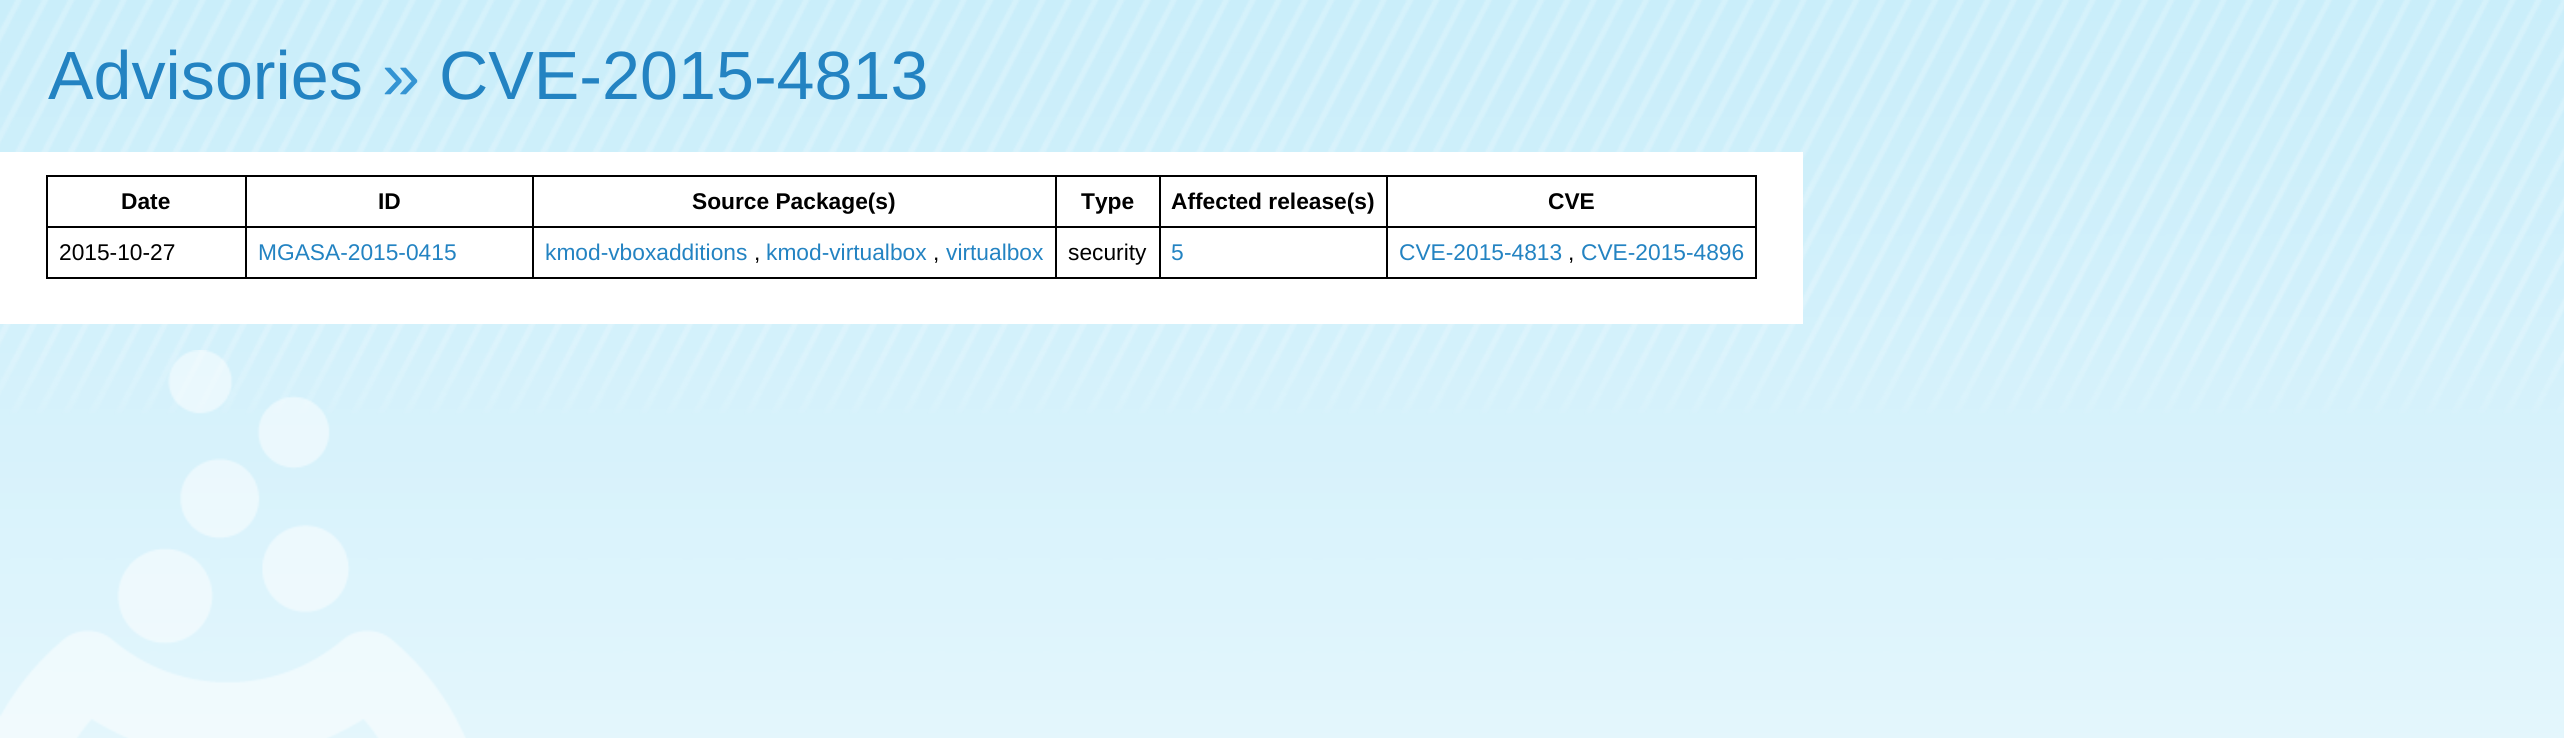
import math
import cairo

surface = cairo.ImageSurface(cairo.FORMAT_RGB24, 2564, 738)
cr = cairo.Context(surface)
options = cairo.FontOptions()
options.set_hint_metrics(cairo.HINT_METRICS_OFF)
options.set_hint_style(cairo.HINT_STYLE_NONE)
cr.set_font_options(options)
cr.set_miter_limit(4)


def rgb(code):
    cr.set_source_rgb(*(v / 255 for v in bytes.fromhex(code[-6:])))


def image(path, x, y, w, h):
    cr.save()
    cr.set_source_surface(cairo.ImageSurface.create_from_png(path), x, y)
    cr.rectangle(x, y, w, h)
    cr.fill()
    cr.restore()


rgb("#ffffff")
cr.paint()
image("img/1.png", 0, 0, 2564, 738)
image("img/2.png", 0, 350, 466, 388)
for x, y, w, h, color in [
    (0, 152, 1803, 172, "#ffffff"),
    (1386, 175, 371, 2, "#000000"),
    (1386, 226, 371, 2, "#000000"),
    (1755, 226, 2, 52, "#000000"),
    (1386, 277, 371, 2, "#000000"),
    (1386, 226, 2, 52, "#000000"),
    (1159, 226, 229, 2, "#000000"),
    (1386, 175, 2, 53, "#000000"),
    (1159, 175, 229, 2, "#000000"),
    (1159, 277, 229, 2, "#000000"),
    (1159, 226, 2, 52, "#000000"),
    (1055, 226, 105, 2, "#000000"),
    (1159, 175, 2, 53, "#000000"),
    (1055, 175, 105, 2, "#000000"),
    (1055, 277, 105, 2, "#000000"),
    (1055, 226, 2, 52, "#000000"),
    (532, 226, 525, 2, "#000000"),
    (1055, 175, 2, 53, "#000000"),
    (532, 175, 525, 2, "#000000"),
    (532, 277, 525, 2, "#000000"),
    (532, 226, 2, 52, "#000000"),
    (245, 226, 289, 2, "#000000"),
    (532, 175, 2, 53, "#000000"),
    (245, 175, 289, 2, "#000000"),
    (245, 277, 289, 2, "#000000"),
    (245, 226, 2, 52, "#000000"),
    (46, 226, 201, 2, "#000000"),
    (245, 175, 2, 53, "#000000"),
    (46, 175, 201, 2, "#000000"),
    (46, 277, 201, 2, "#000000"),
    (46, 226, 2, 52, "#000000"),
    (46, 175, 2, 53, "#000000"),
    (1755, 175, 2, 53, "#000000"),
]:
    rgb(color)
    cr.rectangle(x, y, w, h)
    cr.fill()
cr.select_font_face("Liberation Sans")
cr.set_font_size(68.25)
rgb("#2383c2")
cr.move_to(48, 99)
cr.show_text("Advisories")
rgb("#3494d3")
cr.move_to(382, 99)
cr.show_text("»")
rgb("#2383c2")
cr.move_to(439, 99)
cr.show_text("CVE-2015-4813")
cr.select_font_face("Liberation Sans", cairo.FONT_SLANT_NORMAL, cairo.FONT_WEIGHT_BOLD)
cr.set_font_size(22.75)
rgb("#000000")
for x, y, s in [
    (121, 209, "Date"),
    (378, 209, "ID"),
    (692, 209, "Source Package(s)"),
    (1081, 209, "Type"),
    (1171, 209, "Affected release(s)"),
    (1548, 209, "CVE"),
]:
    cr.move_to(x, y)
    cr.show_text(s)
cr.select_font_face("Liberation Sans")
cr.move_to(59, 260)
cr.show_text("2015-10-27")
rgb("#2383c2")
cr.move_to(258, 260)
cr.show_text("MGASA-2015-0415")
cr.move_to(545, 260)
cr.show_text("kmod-vboxadditions")
rgb("#000000")
cr.move_to(754, 260)
cr.show_text(",")
rgb("#2383c2")
cr.move_to(766, 260)
cr.show_text("kmod-virtualbox")
rgb("#000000")
cr.move_to(933, 260)
cr.show_text(",")
rgb("#2383c2")
cr.move_to(946, 260)
cr.show_text("virtualbox")
rgb("#000000")
cr.move_to(1068, 260)
cr.show_text("security")
rgb("#2383c2")
cr.move_to(1171, 260)
cr.show_text("5")
cr.move_to(1399, 260)
cr.show_text("CVE-2015-4813")
rgb("#000000")
cr.move_to(1568, 260)
cr.show_text(",")
rgb("#2383c2")
cr.move_to(1581, 260)
cr.show_text("CVE-2015-4896")
surface.write_to_png("page.png")
